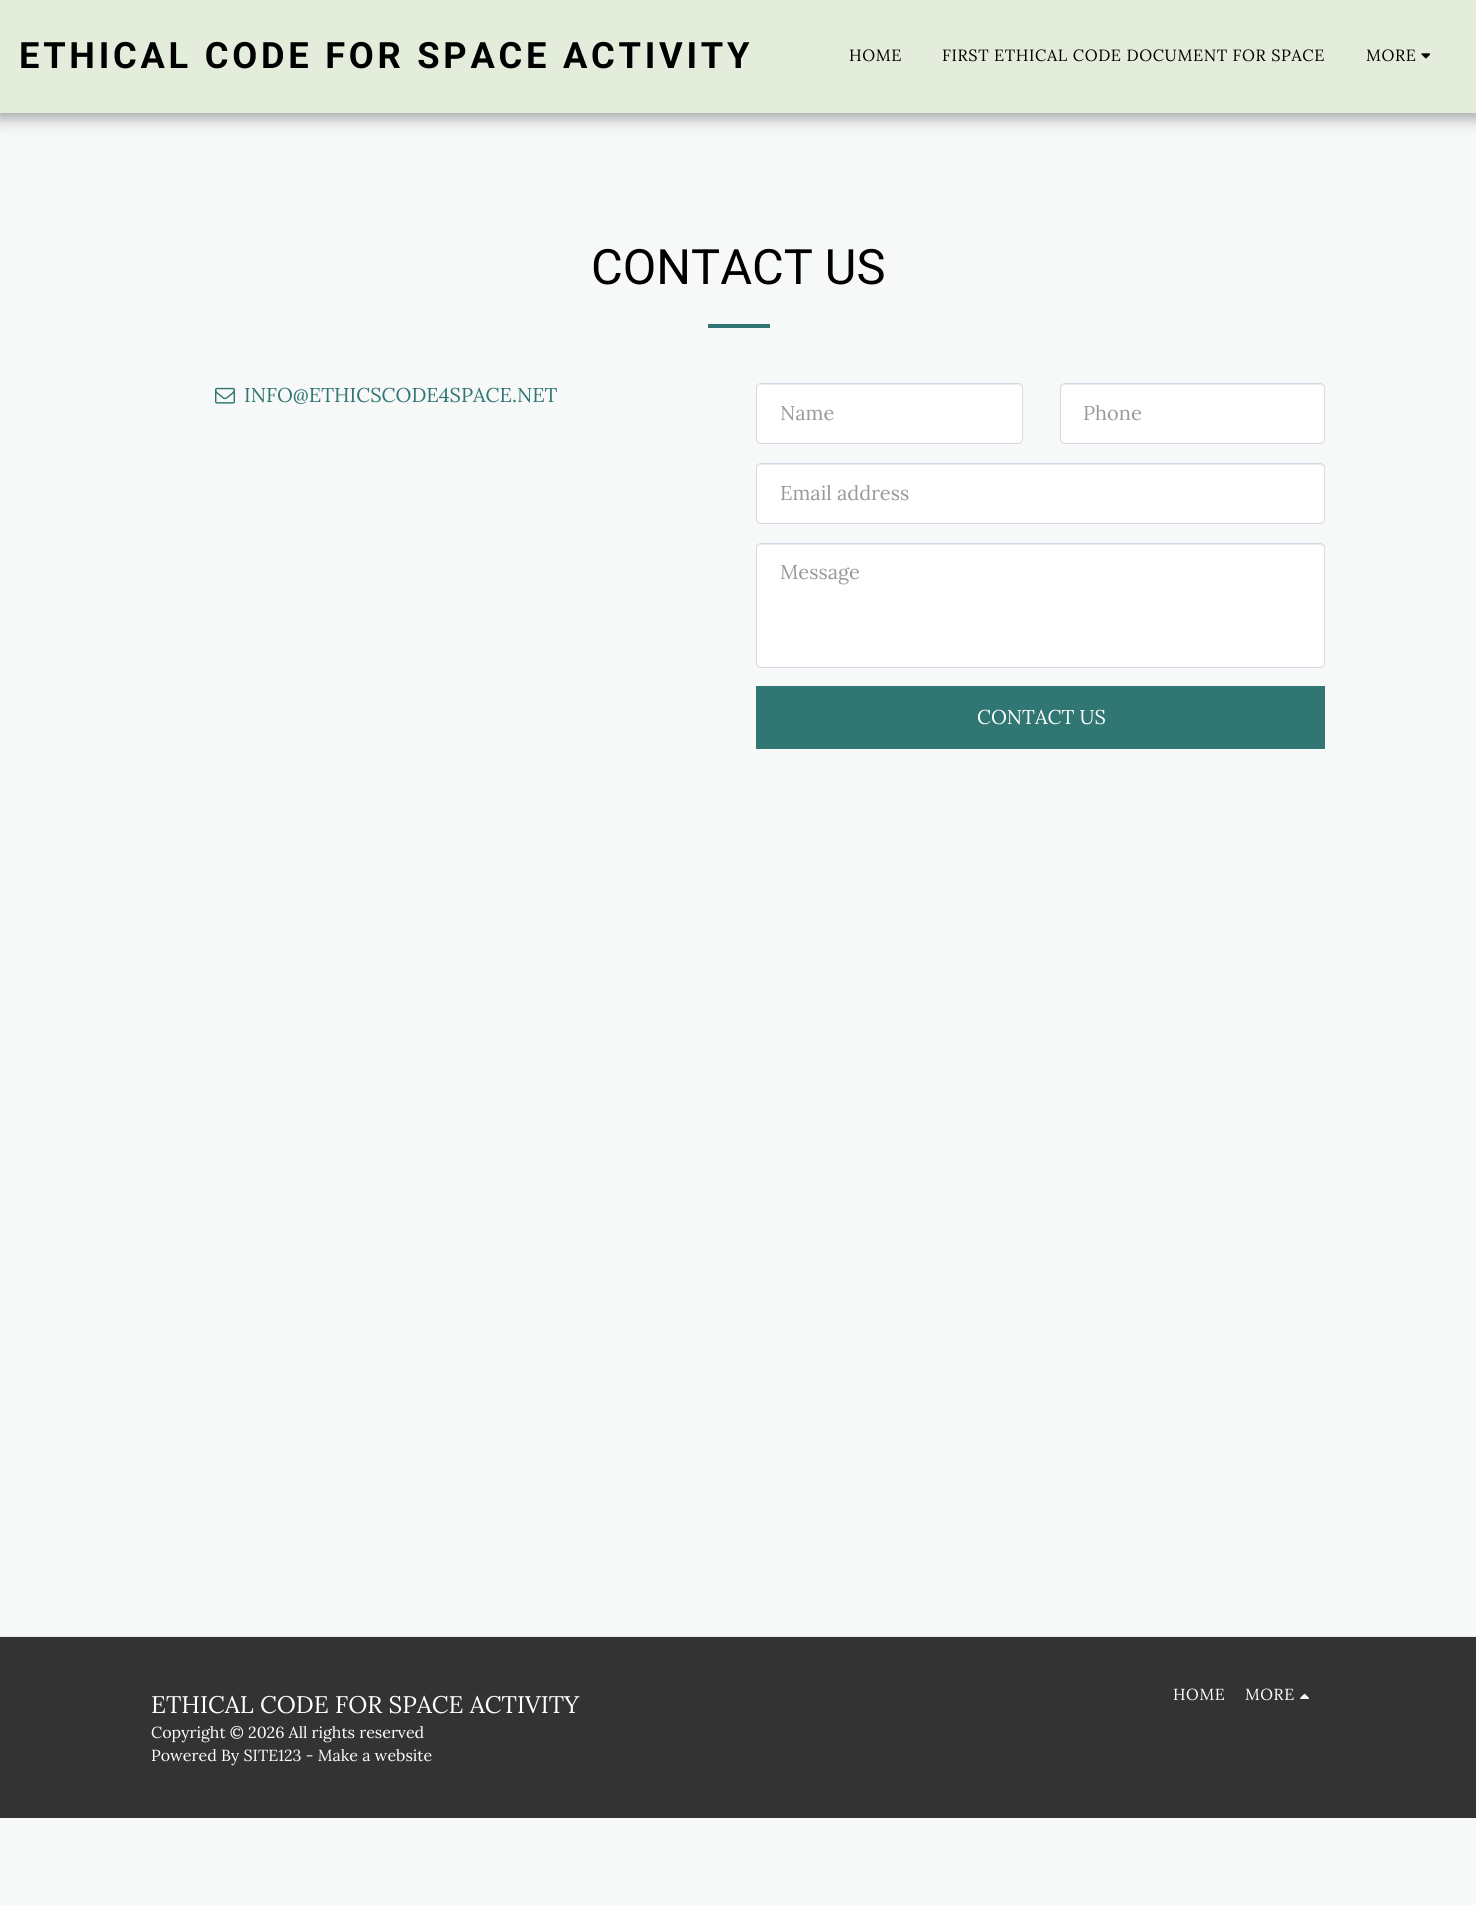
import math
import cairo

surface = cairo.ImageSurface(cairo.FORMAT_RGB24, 1476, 1905)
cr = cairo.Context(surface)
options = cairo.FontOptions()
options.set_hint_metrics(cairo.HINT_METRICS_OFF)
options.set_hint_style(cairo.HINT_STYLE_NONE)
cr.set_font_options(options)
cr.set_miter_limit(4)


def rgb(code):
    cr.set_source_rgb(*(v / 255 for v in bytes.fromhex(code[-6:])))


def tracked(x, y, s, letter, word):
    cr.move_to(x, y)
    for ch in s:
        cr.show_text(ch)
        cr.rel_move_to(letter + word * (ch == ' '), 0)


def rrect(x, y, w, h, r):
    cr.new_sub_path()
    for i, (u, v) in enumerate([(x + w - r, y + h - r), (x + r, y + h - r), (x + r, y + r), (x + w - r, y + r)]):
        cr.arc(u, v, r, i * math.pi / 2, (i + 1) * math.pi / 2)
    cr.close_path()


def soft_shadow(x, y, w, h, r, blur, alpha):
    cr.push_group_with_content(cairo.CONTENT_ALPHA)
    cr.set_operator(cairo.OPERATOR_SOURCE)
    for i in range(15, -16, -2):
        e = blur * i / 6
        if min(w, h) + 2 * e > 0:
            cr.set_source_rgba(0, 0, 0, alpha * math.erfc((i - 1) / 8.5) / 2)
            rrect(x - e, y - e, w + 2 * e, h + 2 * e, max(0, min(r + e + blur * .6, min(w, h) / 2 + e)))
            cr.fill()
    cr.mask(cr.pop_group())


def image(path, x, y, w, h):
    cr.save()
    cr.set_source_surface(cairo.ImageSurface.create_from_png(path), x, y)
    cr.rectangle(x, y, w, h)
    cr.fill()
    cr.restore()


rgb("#f7f9f8")
cr.paint()
rgb("#000000")
soft_shadow(-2, 0, 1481, 118, 0, 7.5, 0.35)
rgb("#e4eddb")
cr.rectangle(0, 0, 1476, 113)
cr.fill()
image("img/1.png", 1421, 53, 9, 6)
rgb("#307672")
cr.rectangle(708, 324, 62, 4)
cr.fill()
image("img/2.png", 215, 387, 20, 17)
rgb("#ffffff")
rrect(756, 383, 267, 61, 5)
cr.fill()
rgb("#ececec")
cr.new_path()
cr.move_to(761, 385)
cr.line_to(1018, 385)
cr.curve_to(1020, 385, 1021, 387, 1021, 389)
cr.line_to(1021, 388)
cr.curve_to(1021, 386, 1019, 384, 1017, 384)
cr.line_to(762, 384)
cr.curve_to(760, 384, 758, 386, 758, 388)
cr.line_to(758, 389)
cr.curve_to(758, 387, 759, 385, 761, 385)
cr.close_path()
cr.fill()
rrect(756.5, 383.5, 266, 60, 4.5)
rgb("#d4d7e5")
cr.set_line_width(1)
cr.stroke()
rgb("#ffffff")
rrect(1060, 383, 265, 61, 5)
cr.fill()
rgb("#ececec")
cr.new_path()
cr.move_to(1065, 385)
cr.line_to(1320, 385)
cr.curve_to(1322, 385, 1324, 387, 1324, 389)
cr.line_to(1324, 388)
cr.curve_to(1324, 386, 1322, 384, 1320, 384)
cr.line_to(1065, 384)
cr.curve_to(1063, 384, 1061, 386, 1061, 388)
cr.line_to(1061, 389)
cr.curve_to(1061, 387, 1063, 385, 1065, 385)
cr.close_path()
cr.fill()
rrect(1060.5, 383.5, 264, 60, 4.5)
rgb("#d4d7e5")
cr.stroke()
rgb("#ffffff")
rrect(756, 463, 569, 61, 5)
cr.fill()
rgb("#ececec")
cr.new_path()
cr.move_to(761, 465)
cr.line_to(1320, 465)
cr.curve_to(1322, 465, 1324, 467, 1324, 469)
cr.curve_to(1324, 466, 1323, 464, 1320, 464)
cr.line_to(762, 464)
cr.curve_to(759, 464, 758, 466, 758, 469)
cr.curve_to(758, 467, 759, 465, 761, 465)
cr.close_path()
cr.fill()
rrect(756.5, 463.5, 568, 60, 4.5)
rgb("#d4d7e5")
cr.stroke()
rgb("#ffffff")
rrect(756, 543, 569, 125, 5)
cr.fill()
rgb("#ececec")
cr.new_path()
cr.move_to(761, 545)
cr.line_to(1320, 545)
cr.curve_to(1322, 545, 1324, 547, 1324, 549)
cr.curve_to(1324, 546, 1323, 544, 1320, 544)
cr.line_to(762, 544)
cr.curve_to(759, 544, 758, 546, 758, 549)
cr.curve_to(758, 547, 759, 545, 761, 545)
cr.close_path()
cr.fill()
rrect(756.5, 543.5, 568, 124, 4.5)
rgb("#d4d7e5")
cr.stroke()
for x, y, w, h, color in [
    (756, 686, 569, 63, "#307672"),
    (0, 1637, 1476, 181, "#333333"),
    (0, 1636, 1476, 1, "#e4eddb"),
]:
    rgb(color)
    cr.rectangle(x, y, w, h)
    cr.fill()
image("img/3.png", 1300, 1693, 9, 6)
cr.select_font_face("Roboto", cairo.FONT_SLANT_NORMAL, cairo.FONT_WEIGHT_BOLD)
cr.set_font_size(36.25)
rgb("#000000")
tracked(19, 68, "ETHICAL CODE FOR SPACE ACTIVITY", 3.75, 0)
cr.select_font_face("Lora")
cr.set_font_size(16.25)
for x, y, s in [
    (849, 61, "HOME"),
    (942, 61, "FIRST ETHICAL CODE DOCUMENT FOR SPACE"),
    (1366, 61, "MORE"),
]:
    tracked(x, y, s, 0.6, 0)
cr.select_font_face("Roboto")
cr.set_font_size(48.75)
cr.move_to(591, 284)
cr.show_text("CONTACT US")
cr.select_font_face("Lora")
cr.set_font_size(20)
rgb("#307672")
cr.move_to(244, 402)
cr.show_text("INFO@ETHICSCODE4SPACE.NET")
rgb("#999999")
for x, y, s in [
    (780, 420, "Name"),
    (1083, 420, "Phone"),
    (780, 500, "Email address"),
    (780, 579, "Message"),
]:
    cr.move_to(x, y)
    cr.show_text(s)
rgb("#ffffff")
cr.move_to(977, 724)
cr.show_text("CONTACT US")
cr.set_font_size(24)
cr.move_to(151, 1713)
cr.show_text("ETHICAL CODE FOR SPACE ACTIVITY")
cr.set_font_size(16)
cr.move_to(151, 1738)
cr.show_text("Copyright © 2026 All rights reserved")
cr.move_to(151, 1761)
cr.show_text("Powered By SITE123 - Make a website")
tracked(1173, 1700, "HOME", 0.6, 0)
tracked(1245, 1700, "MORE", 0.6, 0)
surface.write_to_png("page.png")
